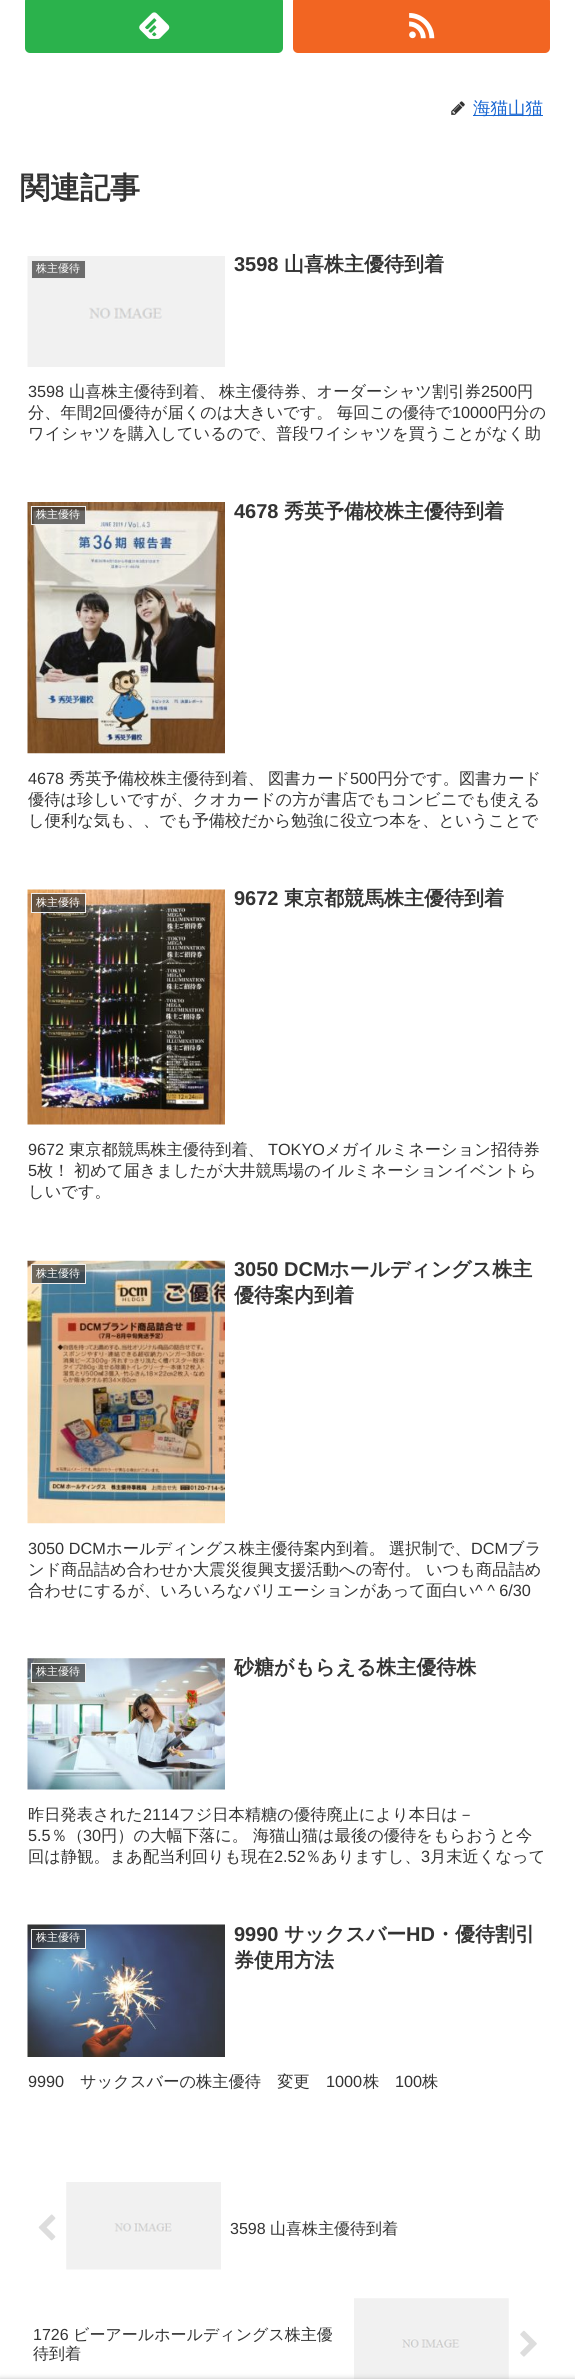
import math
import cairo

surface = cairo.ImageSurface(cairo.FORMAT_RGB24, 575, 2379)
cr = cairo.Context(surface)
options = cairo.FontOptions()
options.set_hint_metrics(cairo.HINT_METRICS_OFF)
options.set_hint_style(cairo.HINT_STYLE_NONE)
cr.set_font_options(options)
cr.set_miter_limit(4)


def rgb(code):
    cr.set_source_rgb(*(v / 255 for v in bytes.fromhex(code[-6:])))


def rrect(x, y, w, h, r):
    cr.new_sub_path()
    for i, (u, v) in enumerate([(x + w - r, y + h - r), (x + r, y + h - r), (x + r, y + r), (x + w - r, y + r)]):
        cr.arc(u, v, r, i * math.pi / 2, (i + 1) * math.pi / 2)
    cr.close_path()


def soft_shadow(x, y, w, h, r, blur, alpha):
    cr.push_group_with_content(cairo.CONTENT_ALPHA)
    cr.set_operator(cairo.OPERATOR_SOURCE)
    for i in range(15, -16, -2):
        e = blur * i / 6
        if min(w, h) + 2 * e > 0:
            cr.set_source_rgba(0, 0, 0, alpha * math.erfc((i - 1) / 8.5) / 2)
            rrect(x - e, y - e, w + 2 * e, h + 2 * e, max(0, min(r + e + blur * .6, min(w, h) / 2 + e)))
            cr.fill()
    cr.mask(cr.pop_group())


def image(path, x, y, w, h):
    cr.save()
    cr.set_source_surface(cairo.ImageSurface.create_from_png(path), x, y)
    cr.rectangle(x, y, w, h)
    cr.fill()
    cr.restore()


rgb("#ffffff")
cr.paint()
rgb("#2bb24c")
rrect(25, -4, 258, 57, 5)
cr.fill()
image("img/1.png", 139, 12, 31, 27)
rgb("#f26522")
rrect(293, -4, 257, 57, 5)
cr.fill()
image("img/2.png", 409, 13, 26, 26)
image("img/3.png", 451, 101, 14, 14)
rgb("#1967d2")
cr.rectangle(473, 115, 70, 1)
cr.fill()
image("img/4.png", 27, 256, 198, 111)
rgb("#6c6c6c")
cr.rectangle(31.5, 260.5, 54, 18)
cr.fill_preserve()
rgb("#eeeeee")
cr.set_line_width(1)
cr.stroke()
image("img/5.png", 27, 502, 198, 252)
cr.set_source_rgba(0.2, 0.2, 0.2, 0.7)
cr.rectangle(31.5, 506.5, 54, 18)
cr.fill_preserve()
rgb("#eeeeee")
cr.stroke()
image("img/6.png", 27, 889, 198, 236)
cr.set_source_rgba(0.2, 0.2, 0.2, 0.7)
cr.rectangle(31.5, 893.5, 54, 19)
cr.fill_preserve()
rgb("#eeeeee")
cr.stroke()
image("img/7.png", 27, 1260, 198, 264)
cr.set_source_rgba(0.2, 0.2, 0.2, 0.7)
cr.rectangle(31.5, 1264.5, 54, 19)
cr.fill_preserve()
rgb("#eeeeee")
cr.stroke()
image("img/8.png", 27, 1658, 198, 132)
cr.set_source_rgba(0.2, 0.2, 0.2, 0.7)
cr.rectangle(31.5, 1663.5, 54, 19)
cr.fill_preserve()
rgb("#eeeeee")
cr.stroke()
image("img/9.png", 27, 1924, 198, 133)
cr.set_source_rgba(0.2, 0.2, 0.2, 0.7)
cr.rectangle(31.5, 1929.5, 54, 19)
cr.fill_preserve()
rgb("#eeeeee")
cr.stroke()
image("img/10.png", 38, 2214, 18, 27)
image("img/11.png", 66, 2182, 155, 88)
image("img/12.png", 354, 2298, 155, 81)
image("img/13.png", 520, 2330, 17, 27)
rgb("#a9a9a9")
soft_shadow(0, 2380, 575, 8, 0, 3, 1)
cr.select_font_face("WenQuanYi Zen Hei Medium")
cr.set_font_size(17.5)
rgb("#1967d2")
cr.move_to(473, 114)
cr.show_text("海猫山猫")
cr.select_font_face("WenQuanYi Zen Hei", cairo.FONT_SLANT_NORMAL, cairo.FONT_WEIGHT_BOLD)
cr.set_font_size(30)
rgb("#333333")
cr.move_to(20, 198)
cr.show_text("関連記事")
cr.select_font_face("Liberation Sans", cairo.FONT_SLANT_NORMAL, cairo.FONT_WEIGHT_BOLD)
cr.set_font_size(20)
cr.move_to(234, 271)
cr.show_text("3598")
cr.select_font_face("WenQuanYi Zen Hei", cairo.FONT_SLANT_NORMAL, cairo.FONT_WEIGHT_BOLD)
cr.move_to(284, 271)
cr.show_text("山喜株主優待到着")
cr.select_font_face("Liberation Sans")
cr.set_font_size(16.25)
cr.move_to(28, 397)
cr.show_text("3598")
cr.select_font_face("WenQuanYi Zen Hei Medium")
cr.move_to(69, 397)
cr.show_text("山喜株主優待到着、")
cr.move_to(219, 397)
cr.show_text("株主優待券、オーダーシャツ割引券")
cr.select_font_face("Liberation Sans")
cr.move_to(481, 397)
cr.show_text("2500")
cr.select_font_face("WenQuanYi Zen Hei Medium")
cr.move_to(517, 397)
cr.show_text("円")
cr.move_to(28, 418)
cr.show_text("分、年間")
cr.select_font_face("Liberation Sans")
cr.move_to(93, 418)
cr.show_text("2")
cr.select_font_face("WenQuanYi Zen Hei Medium")
cr.move_to(102, 418)
cr.show_text("回優待が届くのは大きいです。")
cr.move_to(337, 418)
cr.show_text("毎回この優待で")
cr.select_font_face("Liberation Sans")
cr.move_to(452, 418)
cr.show_text("10000")
cr.select_font_face("WenQuanYi Zen Hei Medium")
cr.move_to(497, 418)
cr.show_text("円分の")
cr.move_to(28, 439)
cr.show_text("ワイシャツを購入しているので、普段ワイシャツを買うことがなく助")
cr.set_font_size(11)
rgb("#ffffff")
cr.move_to(36, 272)
cr.show_text("株主優待")
cr.select_font_face("Liberation Sans", cairo.FONT_SLANT_NORMAL, cairo.FONT_WEIGHT_BOLD)
cr.set_font_size(20)
rgb("#333333")
cr.move_to(234, 518)
cr.show_text("4678")
cr.select_font_face("WenQuanYi Zen Hei", cairo.FONT_SLANT_NORMAL, cairo.FONT_WEIGHT_BOLD)
cr.move_to(284, 518)
cr.show_text("秀英予備校株主優待到着")
cr.select_font_face("Liberation Sans")
cr.set_font_size(16.25)
cr.move_to(28, 784)
cr.show_text("4678")
cr.select_font_face("WenQuanYi Zen Hei Medium")
cr.move_to(69, 784)
cr.show_text("秀英予備校株主優待到着、")
cr.move_to(268, 784)
cr.show_text("図書カード")
cr.select_font_face("Liberation Sans")
cr.move_to(350, 784)
cr.show_text("500")
cr.select_font_face("WenQuanYi Zen Hei Medium")
for x, y, s in [
    (377, 784, "円分です。図書カード"),
    (28, 805, "優待は珍しいですが、クオカードの方が書店でもコンビニでも使える"),
    (28, 826, "し便利な気も、、でも予備校だから勉強に役立つ本を、ということで"),
]:
    cr.move_to(x, y)
    cr.show_text(s)
cr.set_font_size(11)
rgb("#ffffff")
cr.move_to(36, 518)
cr.show_text("株主優待")
cr.select_font_face("Liberation Sans", cairo.FONT_SLANT_NORMAL, cairo.FONT_WEIGHT_BOLD)
cr.set_font_size(20)
rgb("#333333")
cr.move_to(234, 905)
cr.show_text("9672")
cr.select_font_face("WenQuanYi Zen Hei", cairo.FONT_SLANT_NORMAL, cairo.FONT_WEIGHT_BOLD)
cr.move_to(284, 905)
cr.show_text("東京都競馬株主優待到着")
cr.select_font_face("Liberation Sans")
cr.set_font_size(16.25)
cr.move_to(28, 1155)
cr.show_text("9672")
cr.select_font_face("WenQuanYi Zen Hei Medium")
cr.move_to(69, 1155)
cr.show_text("東京都競馬株主優待到着、")
cr.select_font_face("Liberation Sans")
cr.move_to(268, 1155)
cr.show_text("TOKYO")
cr.select_font_face("WenQuanYi Zen Hei Medium")
cr.move_to(325, 1155)
cr.show_text("メガイルミネーション招待券")
cr.select_font_face("Liberation Sans")
cr.move_to(28, 1176)
cr.show_text("5")
cr.select_font_face("WenQuanYi Zen Hei Medium")
for x, y, s in [
    (37, 1176, "枚！"),
    (74, 1176, "初めて届きましたが大井競馬場のイルミネーションイベントら"),
    (28, 1197, "しいです。"),
]:
    cr.move_to(x, y)
    cr.show_text(s)
cr.set_font_size(11)
rgb("#ffffff")
cr.move_to(36, 906)
cr.show_text("株主優待")
cr.select_font_face("Liberation Sans", cairo.FONT_SLANT_NORMAL, cairo.FONT_WEIGHT_BOLD)
cr.set_font_size(20)
rgb("#333333")
cr.move_to(234, 1276)
cr.show_text("3050 DCM")
cr.select_font_face("WenQuanYi Zen Hei", cairo.FONT_SLANT_NORMAL, cairo.FONT_WEIGHT_BOLD)
cr.move_to(329, 1276)
cr.show_text("ホールディングス株主")
cr.move_to(234, 1302)
cr.show_text("優待案内到着")
cr.select_font_face("Liberation Sans")
cr.set_font_size(16.25)
cr.move_to(28, 1554)
cr.show_text("3050 DCM")
cr.select_font_face("WenQuanYi Zen Hei Medium")
cr.move_to(106, 1554)
cr.show_text("ホールディングス株主優待案内到着。")
cr.move_to(389, 1554)
cr.show_text("選択制で、")
cr.select_font_face("Liberation Sans")
cr.move_to(471, 1554)
cr.show_text("DCM")
cr.select_font_face("WenQuanYi Zen Hei Medium")
for x, y, s in [
    (508, 1554, "ブラ"),
    (28, 1575, "ンド商品詰め合わせか大震災復興支援活動への寄付。"),
    (426, 1575, "いつも商品詰め"),
    (28, 1596, "合わせにするが、いろいろなバリエーションがあって面白い"),
]:
    cr.move_to(x, y)
    cr.show_text(s)
cr.select_font_face("Liberation Sans")
cr.move_to(475, 1596)
cr.show_text("^ ^ 6/30")
cr.select_font_face("WenQuanYi Zen Hei Medium")
cr.set_font_size(11)
rgb("#ffffff")
cr.move_to(36, 1277)
cr.show_text("株主優待")
cr.select_font_face("WenQuanYi Zen Hei", cairo.FONT_SLANT_NORMAL, cairo.FONT_WEIGHT_BOLD)
cr.set_font_size(20)
rgb("#333333")
cr.move_to(234, 1674)
cr.show_text("砂糖がもらえる株主優待株")
cr.select_font_face("WenQuanYi Zen Hei Medium")
cr.set_font_size(16.25)
cr.move_to(28, 1820)
cr.show_text("昨日発表された")
cr.select_font_face("Liberation Sans")
cr.move_to(143, 1820)
cr.show_text("2114")
cr.select_font_face("WenQuanYi Zen Hei Medium")
cr.move_to(179, 1820)
cr.show_text("フジ日本精糖の優待廃止により本日は－")
cr.select_font_face("Liberation Sans")
cr.move_to(28, 1841)
cr.show_text("5.5")
cr.select_font_face("WenQuanYi Zen Hei Medium")
cr.move_to(51, 1841)
cr.show_text("％（")
cr.select_font_face("Liberation Sans")
cr.move_to(83, 1841)
cr.show_text("30")
cr.select_font_face("WenQuanYi Zen Hei Medium")
for x, y, s in [
    (101, 1841, "円）の大幅下落に。"),
    (253, 1841, "海猫山猫は最後の優待をもらおうと今"),
    (28, 1862, "回は静観。まあ配当利回りも現在"),
]:
    cr.move_to(x, y)
    cr.show_text(s)
cr.select_font_face("Liberation Sans")
cr.move_to(274, 1862)
cr.show_text("2.52")
cr.select_font_face("WenQuanYi Zen Hei Medium")
cr.move_to(305, 1862)
cr.show_text("％ありますし、")
cr.select_font_face("Liberation Sans")
cr.move_to(421, 1862)
cr.show_text("3")
cr.select_font_face("WenQuanYi Zen Hei Medium")
cr.move_to(430, 1862)
cr.show_text("月末近くなって")
cr.set_font_size(11)
rgb("#ffffff")
cr.move_to(36, 1675)
cr.show_text("株主優待")
cr.select_font_face("Liberation Sans", cairo.FONT_SLANT_NORMAL, cairo.FONT_WEIGHT_BOLD)
cr.set_font_size(20)
rgb("#333333")
cr.move_to(234, 1941)
cr.show_text("9990")
cr.select_font_face("WenQuanYi Zen Hei", cairo.FONT_SLANT_NORMAL, cairo.FONT_WEIGHT_BOLD)
cr.move_to(284, 1941)
cr.show_text("サックスバー")
cr.select_font_face("Liberation Sans", cairo.FONT_SLANT_NORMAL, cairo.FONT_WEIGHT_BOLD)
cr.move_to(406, 1941)
cr.show_text("HD")
cr.select_font_face("WenQuanYi Zen Hei", cairo.FONT_SLANT_NORMAL, cairo.FONT_WEIGHT_BOLD)
cr.move_to(435, 1941)
cr.show_text("・優待割引")
cr.move_to(234, 1967)
cr.show_text("券使用方法")
cr.select_font_face("Liberation Sans")
cr.set_font_size(16.25)
cr.move_to(28, 2087)
cr.show_text("9990")
cr.select_font_face("WenQuanYi Zen Hei Medium")
cr.move_to(80, 2087)
cr.show_text("サックスバーの株主優待　変更")
cr.select_font_face("Liberation Sans")
cr.move_to(326, 2087)
cr.show_text("1000")
cr.select_font_face("WenQuanYi Zen Hei Medium")
cr.move_to(363, 2087)
cr.show_text("株")
cr.select_font_face("Liberation Sans")
cr.move_to(395, 2087)
cr.show_text("100")
cr.select_font_face("WenQuanYi Zen Hei Medium")
cr.move_to(422, 2087)
cr.show_text("株")
cr.set_font_size(11)
rgb("#ffffff")
cr.move_to(36, 1941)
cr.show_text("株主優待")
cr.select_font_face("Liberation Sans")
cr.set_font_size(16)
rgb("#333333")
cr.move_to(230, 2234)
cr.show_text("3598")
cr.select_font_face("WenQuanYi Zen Hei Medium")
cr.move_to(270, 2234)
cr.show_text("山喜株主優待到着")
cr.select_font_face("Liberation Sans")
cr.move_to(33, 2340)
cr.show_text("1726")
cr.select_font_face("WenQuanYi Zen Hei Medium")
cr.move_to(73, 2340)
cr.show_text("ビーアールホールディングス株主優")
cr.move_to(33, 2359)
cr.show_text("待到着")
surface.write_to_png("page.png")
